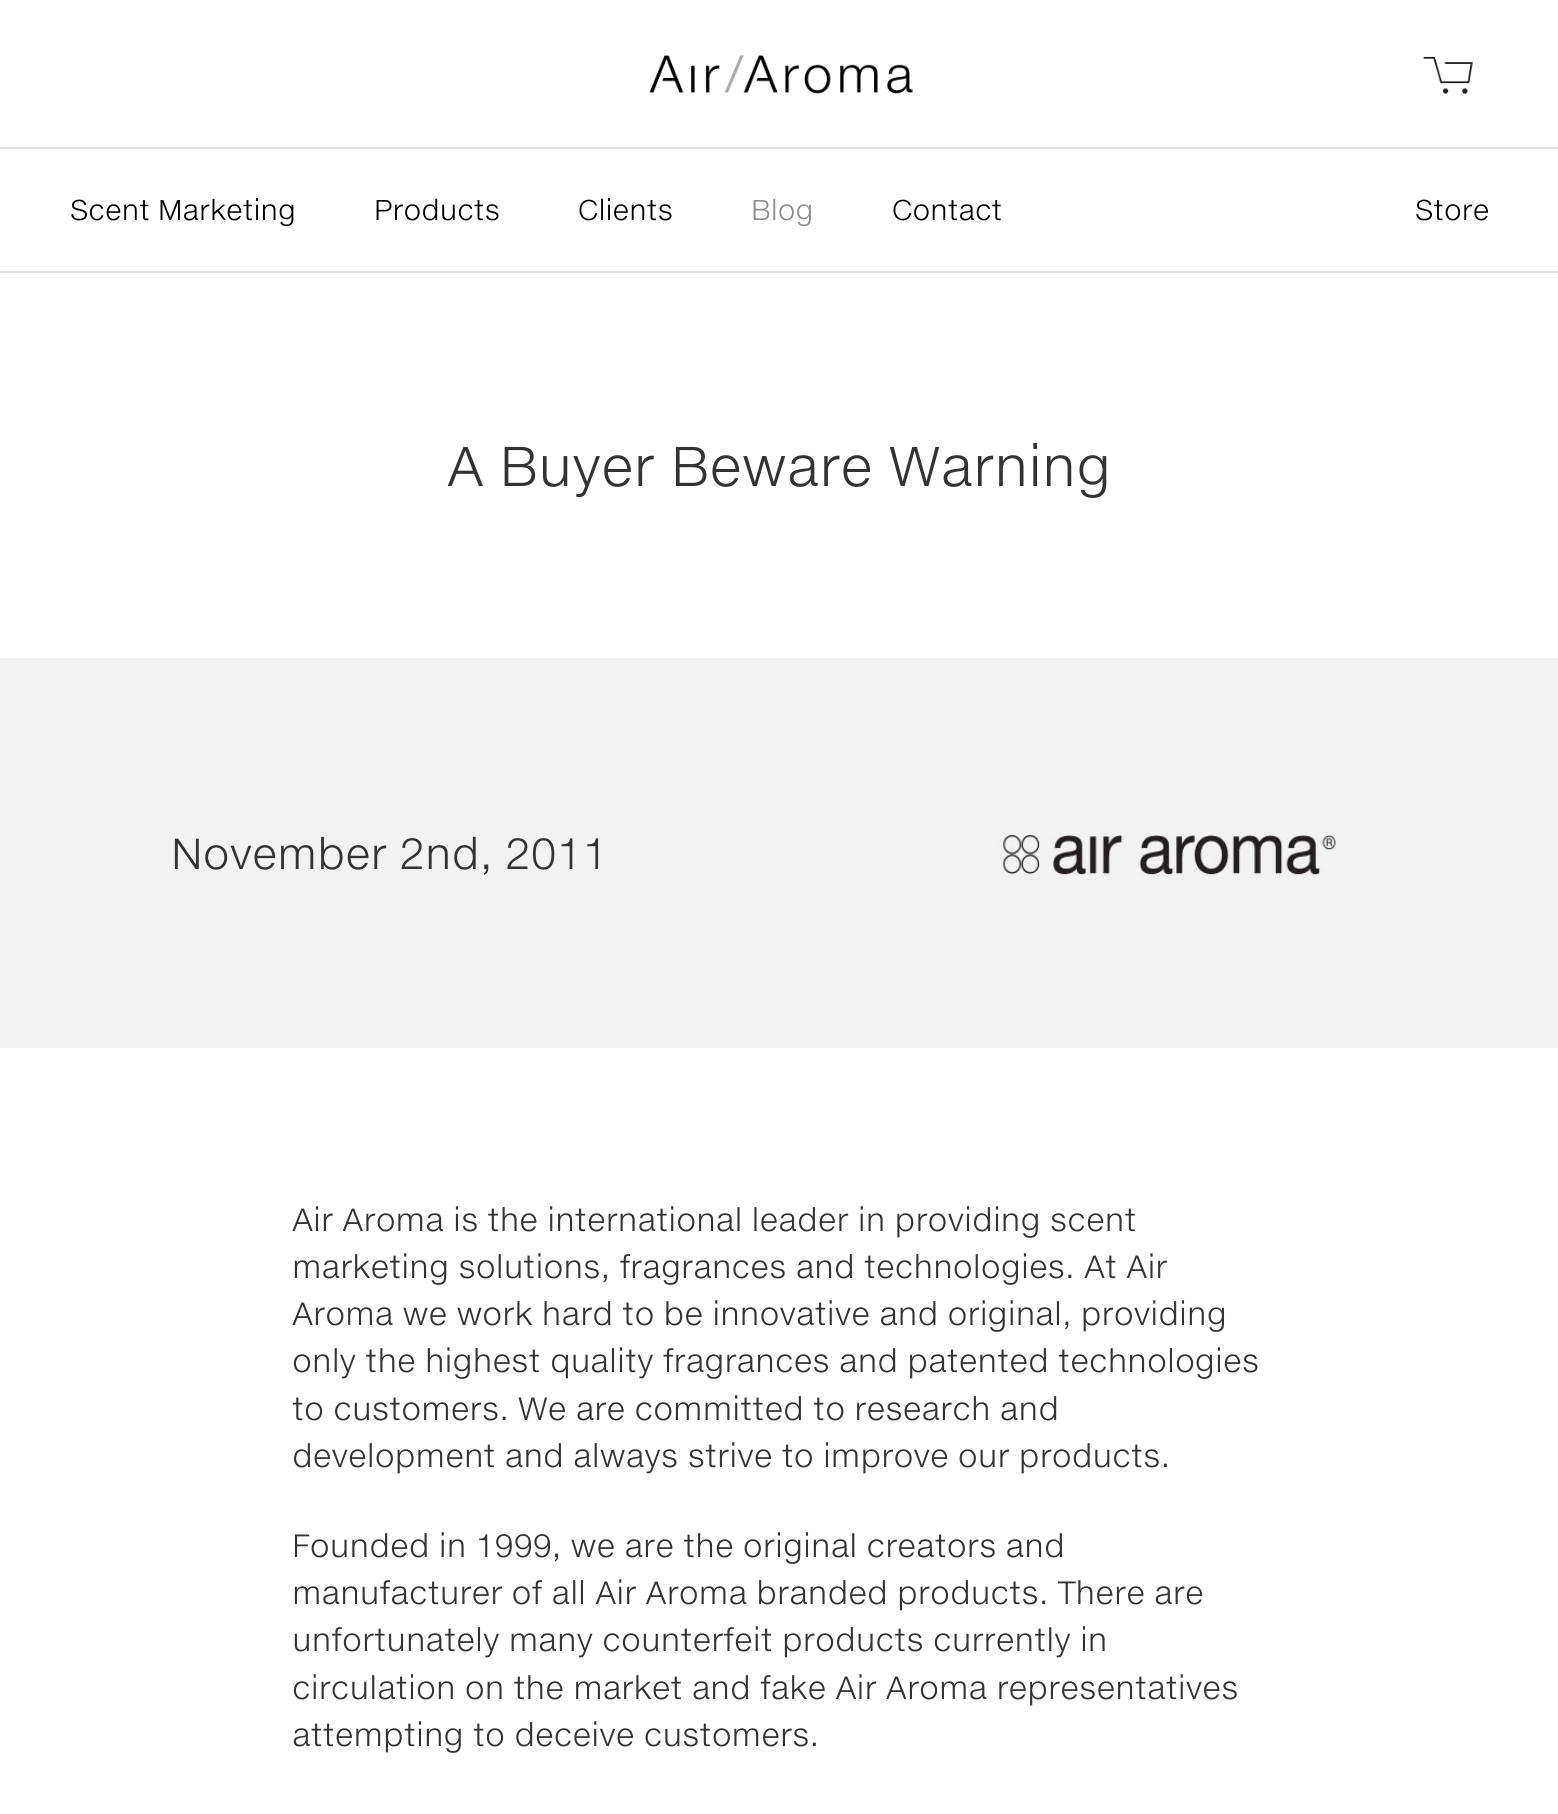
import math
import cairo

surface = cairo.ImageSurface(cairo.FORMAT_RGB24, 1558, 1814)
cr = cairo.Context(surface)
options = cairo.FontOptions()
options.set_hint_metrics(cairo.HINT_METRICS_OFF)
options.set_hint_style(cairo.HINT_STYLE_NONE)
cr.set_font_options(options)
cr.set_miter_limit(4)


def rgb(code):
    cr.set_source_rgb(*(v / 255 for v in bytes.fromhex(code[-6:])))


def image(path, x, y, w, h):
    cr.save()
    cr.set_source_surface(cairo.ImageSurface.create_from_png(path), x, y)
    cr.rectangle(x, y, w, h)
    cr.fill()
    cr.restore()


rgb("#ffffff")
cr.paint()
rgb("#e0e0e0")
cr.rectangle(0, 147, 1558, 2)
cr.fill()
image("img/1.png", 649, 55, 264, 39)
image("img/2.png", 1423, 56, 50, 38)
cr.rectangle(0, 271, 1558, 2)
cr.fill()
rgb("#f2f2f2")
cr.rectangle(0, 658, 1558, 390)
cr.fill()
image("img/3.png", 997, 829, 346, 50)
cr.select_font_face("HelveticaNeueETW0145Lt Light")
cr.set_font_size(28)
rgb("#000000")
for x, y, s in [
    (70, 220, "Scent Marketing"),
    (374, 220, "Products"),
    (578, 220, "Clients"),
]:
    cr.move_to(x, y)
    cr.show_text(s)
rgb("#8c8c8c")
cr.move_to(751, 220)
cr.show_text("Blog")
rgb("#000000")
cr.move_to(892, 220)
cr.show_text("Contact")
cr.move_to(1415, 220)
cr.show_text("Store")
cr.set_font_size(54.75)
rgb("#333333")
cr.move_to(447, 486)
cr.show_text("A Buyer Beware Warning")
cr.set_font_size(42.5)
cr.move_to(171, 869)
cr.show_text("November 2nd, 2011")
cr.set_font_size(31.5)
for x, y, s in [
    (292, 1231, "Air Aroma is the international leader in providing scent"),
    (292, 1278, "marketing solutions, fragrances and technologies. At Air"),
    (292, 1325, "Aroma we work hard to be innovative and original, providing"),
    (292, 1372, "only the highest quality fragrances and patented technologies"),
    (292, 1420, "to customers. We are committed to research and"),
    (292, 1467, "development and always strive to improve our products."),
    (292, 1557, "Founded in 1999, we are the original creators and"),
    (292, 1604, "manufacturer of all Air Aroma branded products. There are"),
    (292, 1651, "unfortunately many counterfeit products currently in"),
    (292, 1699, "circulation on the market and fake Air Aroma representatives"),
    (292, 1746, "attempting to deceive customers."),
]:
    cr.move_to(x, y)
    cr.show_text(s)
surface.write_to_png("page.png")
